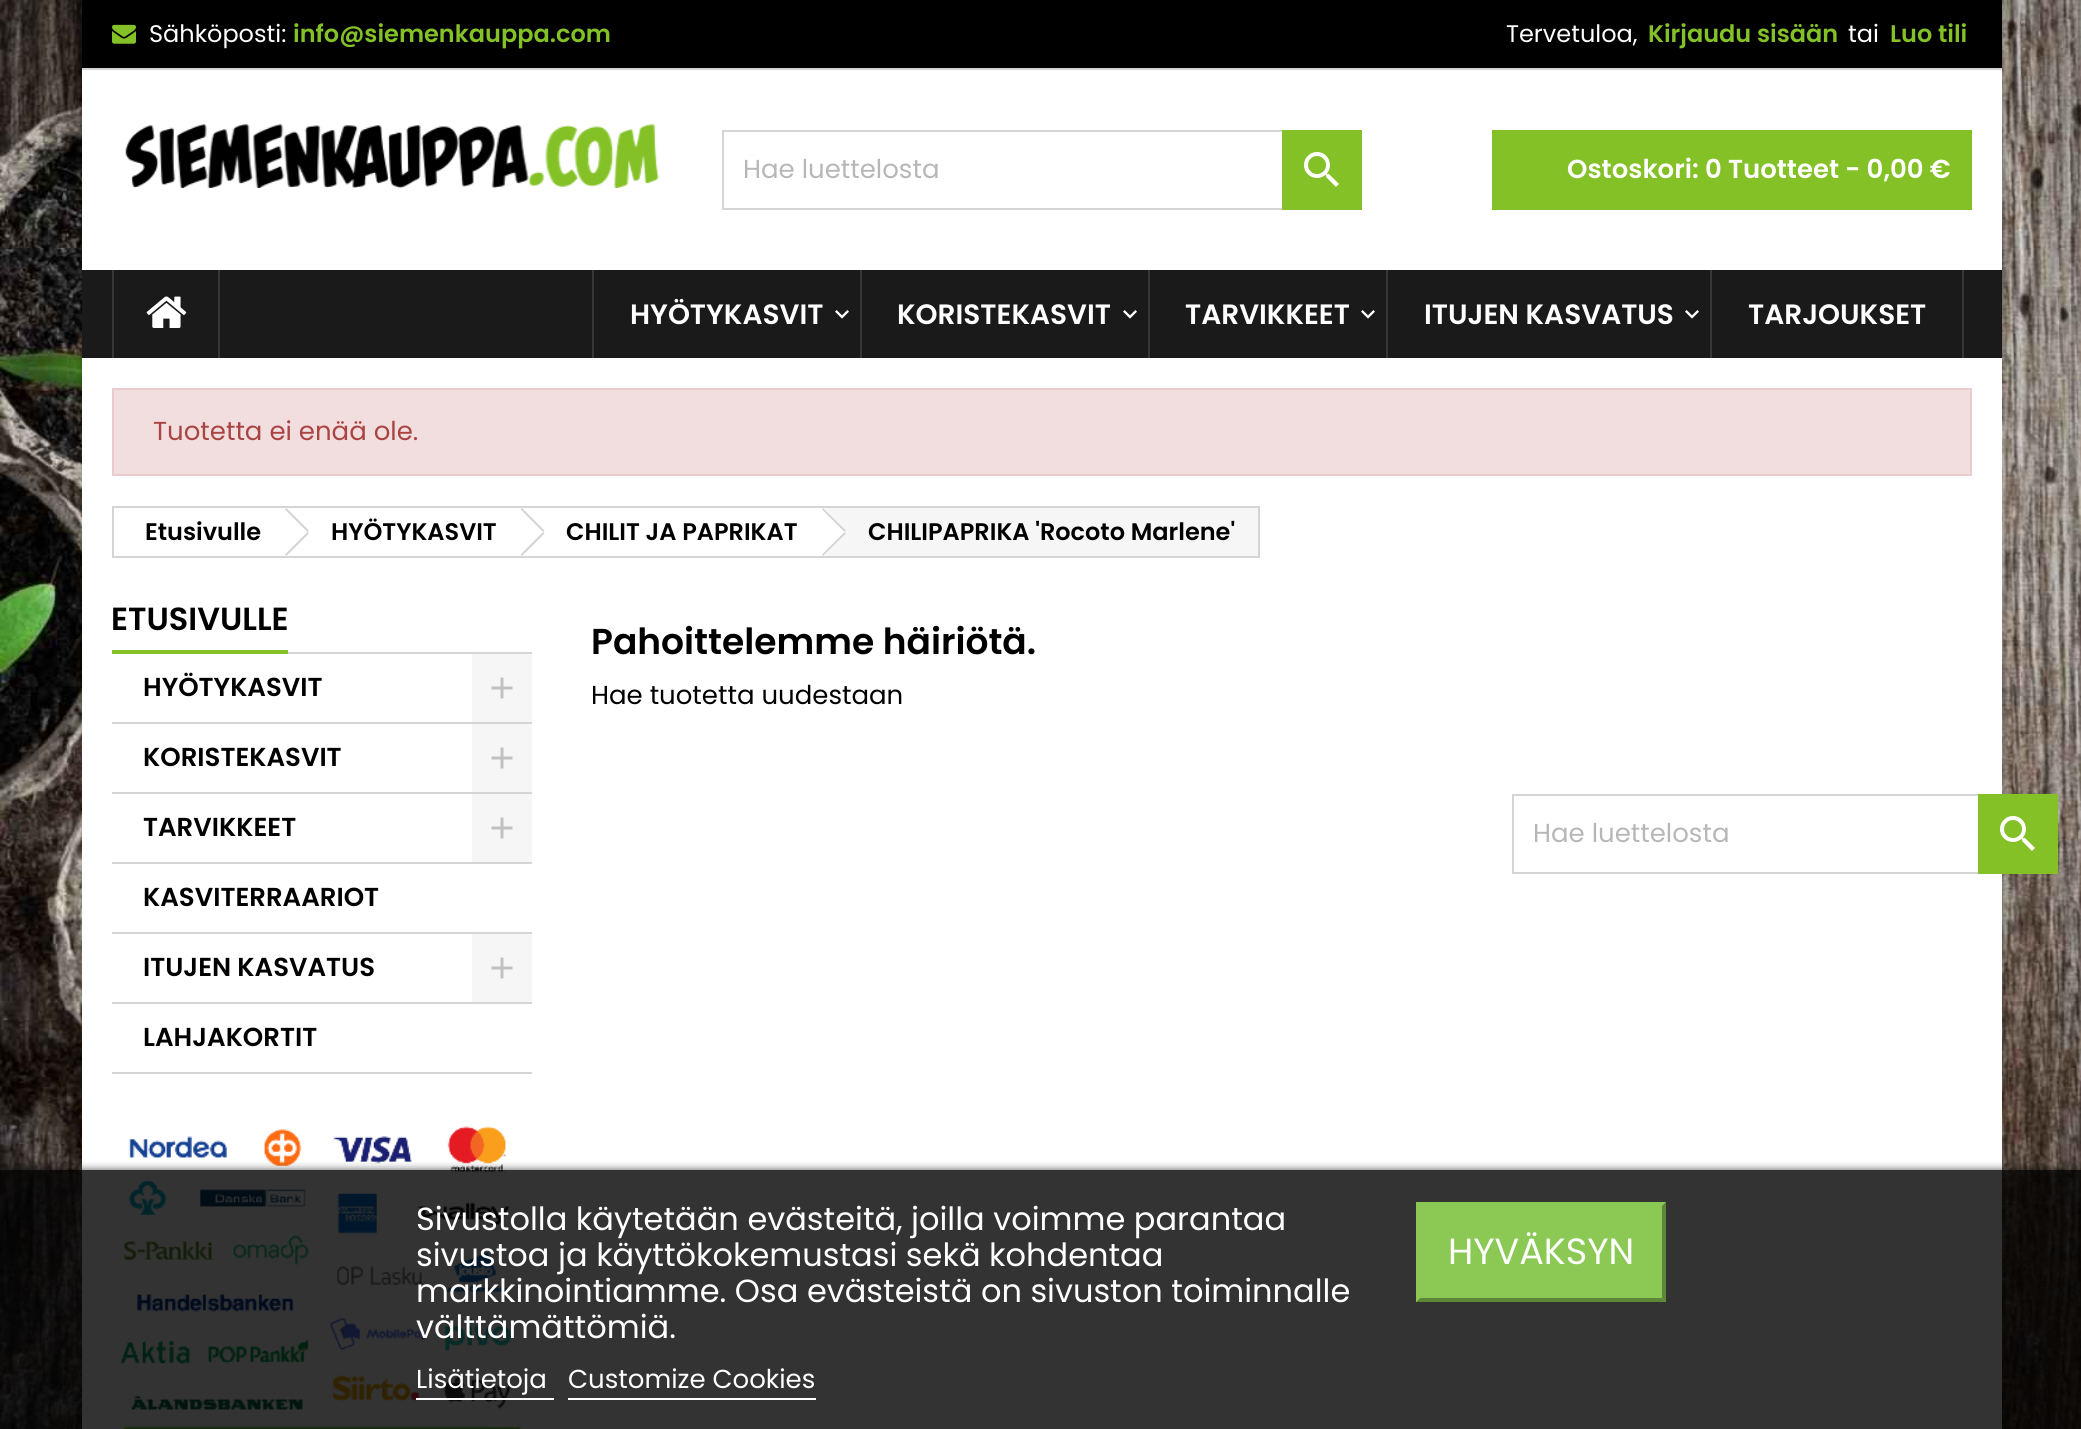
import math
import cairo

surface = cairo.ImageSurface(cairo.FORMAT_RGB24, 2081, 1429)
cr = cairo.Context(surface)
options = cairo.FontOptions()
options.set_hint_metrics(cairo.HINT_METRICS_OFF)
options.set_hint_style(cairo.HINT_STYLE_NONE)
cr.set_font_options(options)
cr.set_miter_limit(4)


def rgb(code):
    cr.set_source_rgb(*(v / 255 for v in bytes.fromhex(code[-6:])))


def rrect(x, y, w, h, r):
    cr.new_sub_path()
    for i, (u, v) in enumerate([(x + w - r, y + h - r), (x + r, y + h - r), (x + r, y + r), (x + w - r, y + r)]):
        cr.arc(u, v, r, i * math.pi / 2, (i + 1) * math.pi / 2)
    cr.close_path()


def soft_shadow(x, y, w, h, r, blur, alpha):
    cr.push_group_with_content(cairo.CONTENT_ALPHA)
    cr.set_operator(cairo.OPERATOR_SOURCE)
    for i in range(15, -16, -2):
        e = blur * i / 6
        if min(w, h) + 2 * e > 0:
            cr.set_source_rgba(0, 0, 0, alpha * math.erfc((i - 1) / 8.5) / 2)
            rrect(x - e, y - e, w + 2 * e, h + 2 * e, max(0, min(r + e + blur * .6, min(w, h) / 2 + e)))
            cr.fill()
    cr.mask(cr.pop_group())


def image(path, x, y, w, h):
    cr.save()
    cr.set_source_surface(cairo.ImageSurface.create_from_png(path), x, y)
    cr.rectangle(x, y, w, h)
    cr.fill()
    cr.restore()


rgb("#ffffff")
cr.paint()
image("img/1.png", 0, 0, 2081, 1429)
rgb("#000000")
soft_shadow(82, 0, 1920, 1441, 0, 4, 0.2)
for x, y, w, h, color in [
    (82, 70, 1920, 1359, "#ffffff"),
    (82, 0, 1920, 68, "#000000"),
    (82, 68, 1920, 2, "#d6d4d4"),
]:
    rgb(color)
    cr.rectangle(x, y, w, h)
    cr.fill()
image("img/2.png", 112, 24, 24, 20)
image("img/3.png", 125, 123, 534, 65)
cr.rectangle(723, 131, 638, 78)
cr.stroke()
rgb("#83c127")
cr.rectangle(1282, 130, 80, 80)
cr.fill()
image("img/4.png", 1304, 152, 35, 35)
for x, y, w, h, color in [
    (1492, 130, 480, 80, "#83c127"),
    (82, 270, 1920, 88, "#1b1a1b"),
    (218, 270, 2, 88, "#363636"),
    (112, 270, 2, 88, "#363636"),
]:
    rgb(color)
    cr.rectangle(x, y, w, h)
    cr.fill()
image("img/5.png", 146, 296, 41, 32)
cr.rectangle(592, 270, 2, 88)
cr.fill()
image("img/6.png", 835, 310, 14, 9)
cr.rectangle(860, 270, 2, 88)
cr.fill()
image("img/6.png", 1123, 310, 14, 9)
cr.rectangle(1148, 270, 2, 88)
cr.fill()
image("img/6.png", 1361, 310, 14, 9)
cr.rectangle(1386, 270, 2, 88)
cr.fill()
image("img/6.png", 1685, 310, 14, 9)
cr.rectangle(1962, 270, 2, 88)
cr.fill()
cr.rectangle(1710, 270, 2, 88)
cr.fill()
rgb("#f2dede")
cr.rectangle(113, 389, 1858, 86)
cr.fill_preserve()
rgb("#ebcccc")
cr.stroke()
cr.rectangle(113, 507, 1146, 50)
rgb("#d6d4d4")
cr.stroke()
cr.new_path()
cr.move_to(286.5, 508)
cr.line_to(309, 530.5)
cr.line_to(307.5, 532)
cr.line_to(285, 509.5)
cr.close_path()
cr.move_to(307.5, 532)
cr.line_to(309, 533.5)
cr.line_to(286.5, 556)
cr.line_to(285, 554.5)
cr.close_path()
cr.fill()
cr.new_path()
cr.move_to(522, 508)
cr.line_to(544.5, 530.5)
cr.line_to(543, 532)
cr.line_to(520.5, 509.5)
cr.close_path()
cr.move_to(543, 532)
cr.line_to(544.5, 533.5)
cr.line_to(522, 556)
cr.line_to(520.5, 554.5)
cr.close_path()
cr.fill()
rgb("#f6f6f6")
cr.rectangle(824, 508, 434, 48)
cr.fill()
rgb("#ffffff")
cr.new_path()
cr.move_to(825, 509)
cr.line_to(844, 529)
cr.curve_to(846, 531, 846, 533, 844, 535)
cr.line_to(825, 555)
cr.curve_to(823, 556, 821, 556, 819, 555)
cr.line_to(799, 535)
cr.curve_to(798, 533, 798, 531, 799, 529)
cr.line_to(819, 509)
cr.curve_to(821, 508, 823, 508, 825, 509)
cr.close_path()
cr.fill()
rgb("#d6d4d4")
cr.new_path()
cr.move_to(823, 508)
cr.line_to(846, 530.5)
cr.line_to(844.5, 532)
cr.line_to(822, 509.5)
cr.close_path()
cr.move_to(844.5, 532)
cr.line_to(846, 533.5)
cr.line_to(823, 556)
cr.line_to(822, 554.5)
cr.close_path()
cr.fill()
for x, y, w, h, color in [
    (288, 652, 244, 2, "#d6d4d4"),
    (112, 650, 176, 4, "#83c127"),
    (112, 722, 420, 2, "#d6d4d4"),
    (472, 654, 60, 68, "#f6f6f6"),
]:
    rgb(color)
    cr.rectangle(x, y, w, h)
    cr.fill()
image("img/7.png", 491, 677, 22, 22)
rgb("#d6d4d4")
cr.rectangle(112, 792, 420, 2)
cr.fill()
rgb("#f6f6f6")
cr.rectangle(472, 724, 60, 68)
cr.fill()
image("img/7.png", 491, 747, 22, 22)
rgb("#d6d4d4")
cr.rectangle(112, 862, 420, 2)
cr.fill()
rgb("#f6f6f6")
cr.rectangle(472, 794, 60, 68)
cr.fill()
image("img/7.png", 491, 817, 22, 22)
for x, y, w, h, color in [
    (112, 932, 420, 2, "#d6d4d4"),
    (112, 1002, 420, 2, "#d6d4d4"),
    (472, 934, 60, 68, "#f6f6f6"),
]:
    rgb(color)
    cr.rectangle(x, y, w, h)
    cr.fill()
image("img/7.png", 491, 957, 22, 22)
rgb("#d6d4d4")
cr.rectangle(112, 1072, 420, 2)
cr.fill()
image("img/8.png", 120, 1126, 401, 303)
cr.rectangle(1513, 795, 544, 78)
cr.stroke()
rgb("#83c127")
cr.rectangle(1978, 794, 80, 80)
cr.fill()
image("img/4.png", 2000, 816, 35, 35)
cr.save()
cr.rectangle(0, 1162, 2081, 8)
cr.clip()
rgb("#000000")
soft_shadow(0, 1172, 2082, 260, 0, 5, 1)
cr.restore()
cr.set_source_rgba(0, 0, 0, 0.8)
cr.rectangle(0, 1170, 2081, 259)
cr.fill()
rgb("#ffffff")
cr.rectangle(416, 1398, 138, 2)
cr.rectangle(568, 1398, 248, 2)
cr.fill()
rgb("#8bc954")
cr.rectangle(1416, 1202, 250, 100)
cr.fill()
rgb("#5d8638")
cr.new_path()
cr.move_to(1666, 1202)
cr.line_to(1666, 1302)
cr.line_to(1662, 1298)
cr.line_to(1662, 1206)
cr.close_path()
cr.fill()
cr.new_path()
cr.move_to(1666, 1302)
cr.line_to(1416, 1302)
cr.line_to(1420, 1298)
cr.line_to(1662, 1298)
cr.close_path()
cr.fill()
rgb("#8bc954")
cr.new_path()
cr.move_to(1416, 1302)
cr.line_to(1416, 1202)
cr.line_to(1420, 1206)
cr.line_to(1420, 1298)
cr.close_path()
cr.fill()
cr.select_font_face("Poppins")
cr.set_font_size(24)
rgb("#ffffff")
cr.move_to(149, 42)
cr.show_text("Sähköposti:")
cr.select_font_face("Poppins SemiBold")
rgb("#83c127")
cr.move_to(293, 42)
cr.show_text("info@siemenkauppa.com")
cr.select_font_face("Poppins")
rgb("#ffffff")
cr.move_to(1506, 42)
cr.show_text("Tervetuloa,")
cr.select_font_face("Poppins SemiBold")
rgb("#83c127")
cr.move_to(1648, 42)
cr.show_text("Kirjaudu sisään")
cr.select_font_face("Poppins")
rgb("#ffffff")
cr.move_to(1848, 42)
cr.show_text("tai")
cr.select_font_face("Poppins SemiBold")
rgb("#83c127")
cr.move_to(1890, 42)
cr.show_text("Luo tili")
cr.select_font_face("Poppins")
cr.set_font_size(26)
rgb("#b7b7b7")
cr.move_to(743, 178)
cr.show_text("Hae luettelosta")
cr.select_font_face("Poppins SemiBold")
rgb("#ffffff")
cr.move_to(1567, 178)
cr.show_text("Ostoskori: 0 Tuotteet - 0,00 €")
cr.set_font_size(28)
for x, y, s in [
    (630, 324, "HYÖTYKASVIT"),
    (897, 324, "KORISTEKASVIT"),
    (1185, 324, "TARVIKKEET"),
    (1424, 324, "ITUJEN KASVATUS"),
    (1748, 324, "TARJOUKSET"),
]:
    cr.move_to(x, y)
    cr.show_text(s)
cr.select_font_face("Poppins")
cr.set_font_size(26)
rgb("#a94442")
cr.move_to(153, 440)
cr.show_text("Tuotetta ei enää ole.")
cr.select_font_face("Poppins SemiBold")
cr.set_font_size(24)
rgb("#000000")
for x, y, s in [
    (145, 540, "Etusivulle"),
    (331, 540, "HYÖTYKASVIT"),
    (566, 540, "CHILIT JA PAPRIKAT"),
    (868, 540, "CHILIPAPRIKA 'Rocoto Marlene'"),
]:
    cr.move_to(x, y)
    cr.show_text(s)
cr.set_font_size(32)
cr.move_to(111, 630)
cr.show_text("ETUSIVULLE")
cr.set_font_size(26)
for x, y, s in [
    (143, 696, "HYÖTYKASVIT"),
    (143, 766, "KORISTEKASVIT"),
    (143, 836, "TARVIKKEET"),
    (143, 906, "KASVITERRAARIOT"),
    (143, 976, "ITUJEN KASVATUS"),
    (143, 1046, "LAHJAKORTIT"),
]:
    cr.move_to(x, y)
    cr.show_text(s)
cr.set_font_size(36)
cr.move_to(591, 654)
cr.show_text("Pahoittelemme häiriötä.")
cr.select_font_face("Poppins")
cr.set_font_size(26)
cr.move_to(591, 704)
cr.show_text("Hae tuotetta uudestaan")
rgb("#b7b7b7")
cr.move_to(1533, 842)
cr.show_text("Hae luettelosta")
cr.set_font_size(32)
rgb("#ffffff")
for x, y, s in [
    (416, 1230, "Sivustolla käytetään evästeitä, joilla voimme parantaa"),
    (416, 1266, "sivustoa ja käyttökokemustasi sekä kohdentaa"),
    (416, 1302, "markkinointiamme. Osa evästeistä on sivuston toiminnalle"),
    (416, 1338, "välttämättömiä."),
]:
    cr.move_to(x, y)
    cr.show_text(s)
cr.set_font_size(26)
cr.move_to(416, 1388)
cr.show_text("Lisätietoja")
cr.move_to(568, 1388)
cr.show_text("Customize Cookies")
cr.set_font_size(36.5)
cr.move_to(1448, 1264)
cr.show_text("HYVÄKSYN")
surface.write_to_png("page.png")
